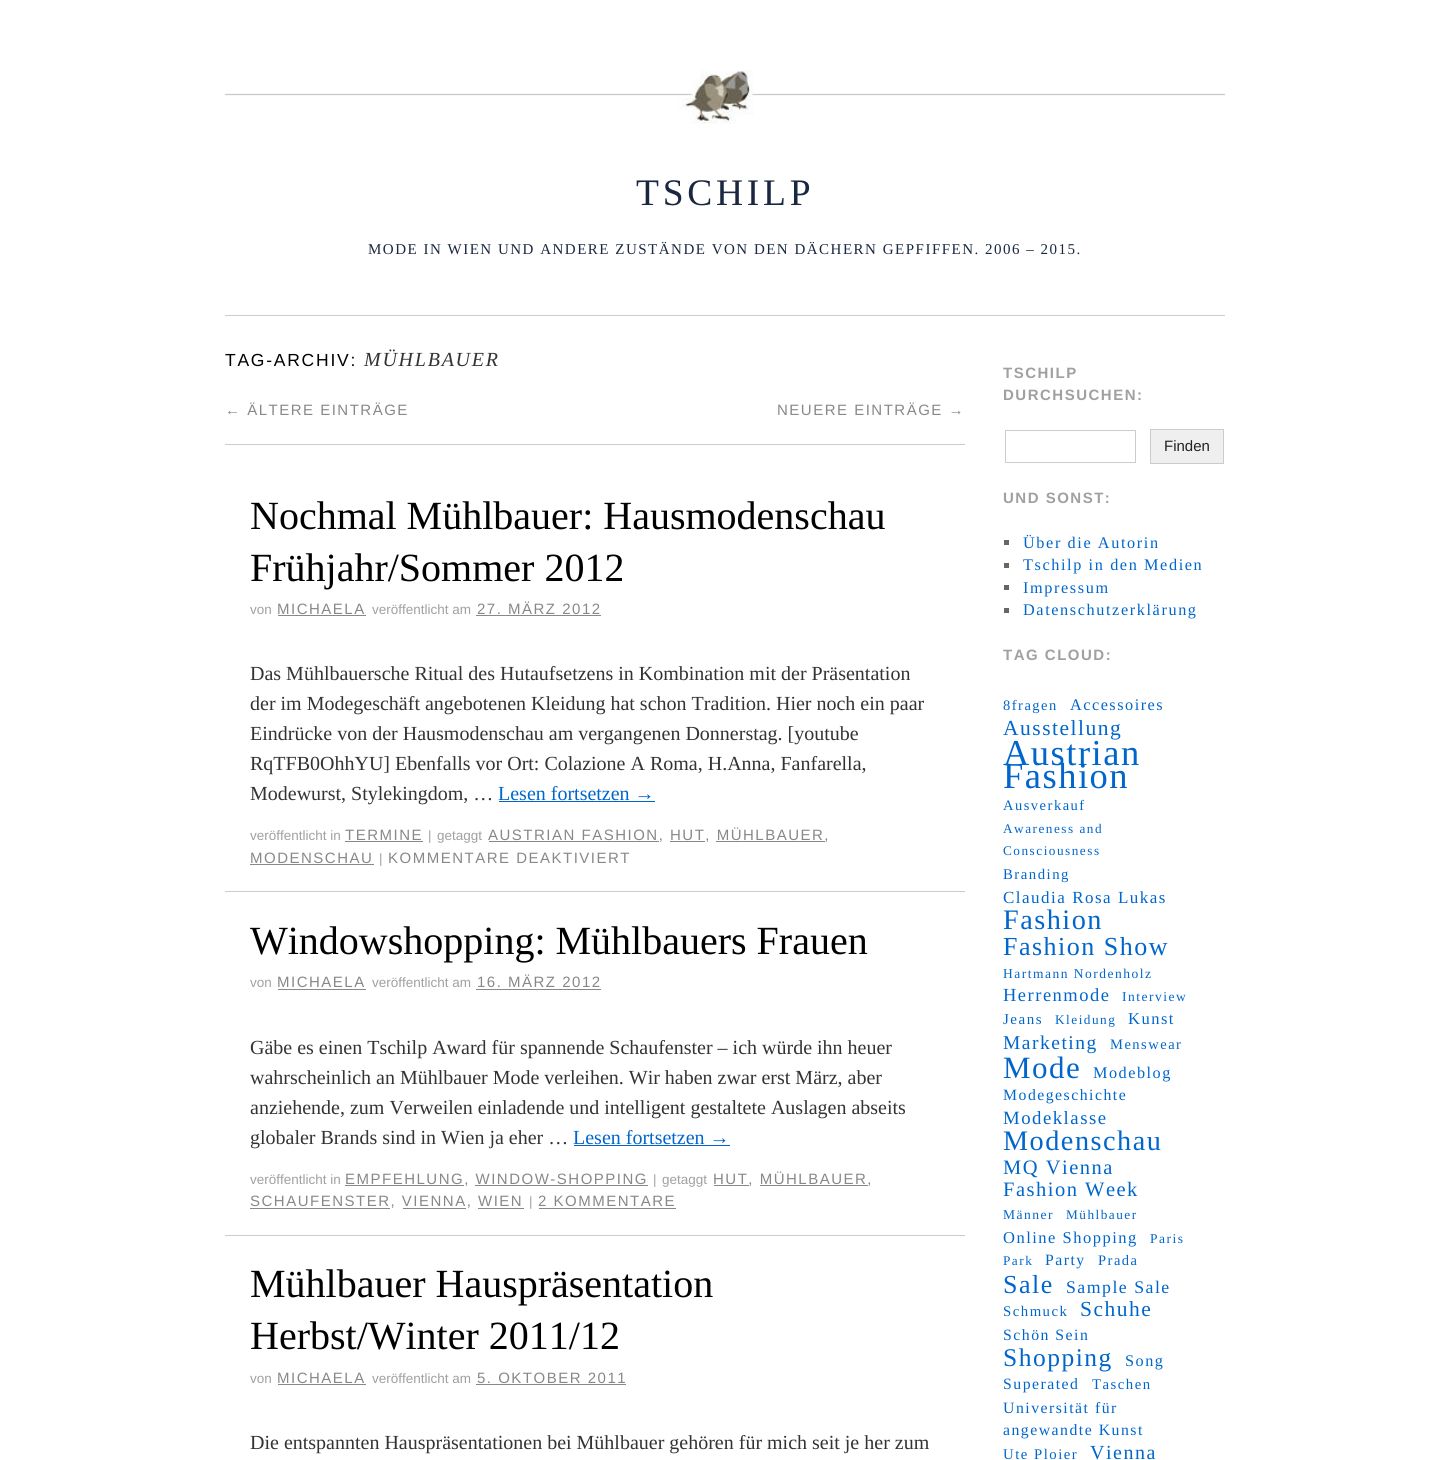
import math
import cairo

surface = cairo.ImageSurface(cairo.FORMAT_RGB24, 1449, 1460)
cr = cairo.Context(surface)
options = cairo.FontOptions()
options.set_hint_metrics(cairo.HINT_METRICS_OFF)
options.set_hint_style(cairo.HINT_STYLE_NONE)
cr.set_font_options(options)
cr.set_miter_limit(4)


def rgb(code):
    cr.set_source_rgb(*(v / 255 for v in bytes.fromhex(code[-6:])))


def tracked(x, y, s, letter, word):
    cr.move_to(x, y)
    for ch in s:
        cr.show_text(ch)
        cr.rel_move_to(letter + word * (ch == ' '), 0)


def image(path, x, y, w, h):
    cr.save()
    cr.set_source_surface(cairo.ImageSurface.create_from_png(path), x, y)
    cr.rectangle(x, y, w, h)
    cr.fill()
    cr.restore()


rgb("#ffffff")
cr.paint()
image("img/1.png", 225, 70, 1000, 54)
for x, y, w, h, color in [
    (225, 315, 1000, 1, "#cccccc"),
    (225, 444, 740, 1, "#cccccc"),
    (225, 891, 740, 1, "#cccccc"),
    (278, 615, 88, 1, "#888888"),
    (476, 615, 125, 1, "#888888"),
    (499, 801, 156, 1, "#0066cc"),
    (345, 841, 78, 1, "#888888"),
    (489, 841, 170, 1, "#888888"),
    (670, 841, 35, 1, "#888888"),
    (716, 841, 109, 1, "#888888"),
    (250, 864, 124, 1, "#888888"),
    (225, 1235, 740, 1, "#cccccc"),
    (278, 989, 88, 1, "#888888"),
    (476, 989, 125, 1, "#888888"),
    (574, 1145, 156, 1, "#0066cc"),
    (345, 1185, 119, 1, "#888888"),
    (475, 1185, 173, 1, "#888888"),
    (714, 1185, 35, 1, "#888888"),
    (760, 1185, 108, 1, "#888888"),
    (250, 1208, 140, 1, "#888888"),
    (403, 1208, 63, 1, "#888888"),
    (478, 1208, 46, 1, "#888888"),
    (539, 1208, 137, 1, "#888888"),
    (278, 1384, 88, 1, "#888888"),
    (476, 1384, 150, 1, "#888888"),
]:
    rgb(color)
    cr.rectangle(x, y, w, h)
    cr.fill()
cr.rectangle(1005.5, 430.5, 130, 32)
rgb("#cccccc")
cr.set_line_width(1)
cr.stroke()
rgb("#efefef")
cr.rectangle(1150.5, 429.5, 73, 34)
cr.fill_preserve()
rgb("#cccccc")
cr.stroke()
for x, y, w, h, color in [
    (1004, 540, 5, 5, "#666666"),
    (1004, 563, 5, 5, "#666666"),
    (1004, 585, 5, 5, "#666666"),
    (1004, 608, 5, 5, "#666666"),
]:
    rgb(color)
    cr.rectangle(x, y, w, h)
    cr.fill()
cr.select_font_face("Liberation Serif")
cr.set_font_size(37.5)
rgb("#1a2740")
tracked(636, 205, "TSCHILP", 3.75, 0)
cr.set_font_size(15)
tracked(368, 254, "MODE IN WIEN UND ANDERE ZUSTÄNDE VON DEN DÄCHERN GEPFIFFEN. 2006 – 2015.", 1.5, 0)
cr.select_font_face("Liberation Sans")
cr.set_font_size(17.5)
rgb("#000000")
tracked(225, 366, "TAG-ARCHIV:", 1.75, 0)
cr.select_font_face("Liberation Serif", cairo.FONT_SLANT_ITALIC)
cr.set_font_size(20)
rgb("#333333")
tracked(364, 366, "MÜHLBAUER", 1.75, 0)
cr.select_font_face("Liberation Sans")
cr.set_font_size(15)
rgb("#888888")
tracked(225, 415, "← ÄLTERE EINTRÄGE", 1.5, 0)
tracked(777, 415, "NEUERE EINTRÄGE →", 1.5, 0)
cr.select_font_face("Liberation Serif")
cr.set_font_size(40)
rgb("#000000")
cr.move_to(250, 529)
cr.show_text("Nochmal Mühlbauer: Hausmodenschau")
cr.move_to(250, 581)
cr.show_text("Frühjahr/Sommer 2012")
cr.select_font_face("Liberation Sans")
cr.set_font_size(13.5)
rgb("#a0a0a0")
cr.move_to(250, 614)
cr.show_text("von")
cr.set_font_size(15)
rgb("#888888")
tracked(277, 614, "MICHAELA", 1.5, 0)
cr.set_font_size(13.5)
rgb("#a0a0a0")
cr.move_to(372, 614)
cr.show_text("veröffentlicht am")
cr.set_font_size(15)
rgb("#888888")
tracked(477, 614, "27. MÄRZ 2012", 1.5, 0)
cr.select_font_face("Liberation Serif")
cr.set_font_size(20)
rgb("#333333")
for x, y, s in [
    (250, 680, "Das Mühlbauersche Ritual des Hutaufsetzens in Kombination mit der Präsentation"),
    (250, 710, "der im Modegeschäft angebotenen Kleidung hat schon Tradition. Hier noch ein paar"),
    (250, 740, "Eindrücke von der Hausmodenschau am vergangenen Donnerstag. [youtube"),
    (250, 770, "RqTFB0OhhYU] Ebenfalls vor Ort: Colazione A Roma, H.Anna, Fanfarella,"),
    (250, 800, "Modewurst, Stylekingdom, …"),
]:
    cr.move_to(x, y)
    cr.show_text(s)
rgb("#0066cc")
cr.move_to(498, 800)
cr.show_text("Lesen fortsetzen →")
cr.select_font_face("Liberation Sans")
cr.set_font_size(13.5)
rgb("#a0a0a0")
cr.move_to(250, 840)
cr.show_text("veröffentlicht in")
cr.set_font_size(15)
rgb("#888888")
tracked(345, 840, "TERMINE", 1.5, 0)
cr.set_font_size(13.5)
rgb("#a0a0a0")
cr.move_to(428, 840)
cr.show_text("|")
cr.move_to(437, 840)
cr.show_text("getaggt")
cr.set_font_size(15)
rgb("#888888")
tracked(488, 840, "AUSTRIAN FASHION, HUT, MÜHLBAUER,", 1.5, 0)
tracked(250, 863, "MODENSCHAU", 1.5, 0)
cr.set_font_size(13.5)
rgb("#a0a0a0")
cr.move_to(379, 863)
cr.show_text("|")
cr.set_font_size(15)
rgb("#888888")
tracked(388, 863, "KOMMENTARE DEAKTIVIERT", 1.5, 0)
cr.select_font_face("Liberation Serif")
cr.set_font_size(40)
rgb("#000000")
cr.move_to(250, 954)
cr.show_text("Windowshopping: Mühlbauers Frauen")
cr.select_font_face("Liberation Sans")
cr.set_font_size(13.5)
rgb("#a0a0a0")
cr.move_to(250, 987)
cr.show_text("von")
cr.set_font_size(15)
rgb("#888888")
tracked(277, 987, "MICHAELA", 1.5, 0)
cr.set_font_size(13.5)
rgb("#a0a0a0")
cr.move_to(372, 987)
cr.show_text("veröffentlicht am")
cr.set_font_size(15)
rgb("#888888")
tracked(477, 987, "16. MÄRZ 2012", 1.5, 0)
cr.select_font_face("Liberation Serif")
cr.set_font_size(20)
rgb("#333333")
for x, y, s in [
    (250, 1054, "Gäbe es einen Tschilp Award für spannende Schaufenster – ich würde ihn heuer"),
    (250, 1084, "wahrscheinlich an Mühlbauer Mode verleihen. Wir haben zwar erst März, aber"),
    (250, 1114, "anziehende, zum Verweilen einladende und intelligent gestaltete Auslagen abseits"),
    (250, 1144, "globaler Brands sind in Wien ja eher …"),
]:
    cr.move_to(x, y)
    cr.show_text(s)
rgb("#0066cc")
cr.move_to(573, 1144)
cr.show_text("Lesen fortsetzen →")
cr.select_font_face("Liberation Sans")
cr.set_font_size(13.5)
rgb("#a0a0a0")
cr.move_to(250, 1184)
cr.show_text("veröffentlicht in")
cr.set_font_size(15)
rgb("#888888")
tracked(345, 1184, "EMPFEHLUNG, WINDOW-SHOPPING", 1.5, 0)
cr.set_font_size(13.5)
rgb("#a0a0a0")
cr.move_to(653, 1184)
cr.show_text("|")
cr.move_to(662, 1184)
cr.show_text("getaggt")
cr.set_font_size(15)
rgb("#888888")
tracked(713, 1184, "HUT, MÜHLBAUER,", 1.5, 0)
tracked(250, 1206, "SCHAUFENSTER, VIENNA, WIEN", 1.5, 0)
cr.set_font_size(13.5)
rgb("#a0a0a0")
cr.move_to(529, 1206)
cr.show_text("|")
cr.set_font_size(15)
rgb("#888888")
tracked(538, 1206, "2 KOMMENTARE", 1.5, 0)
cr.select_font_face("Liberation Serif")
cr.set_font_size(40)
rgb("#000000")
cr.move_to(250, 1297)
cr.show_text("Mühlbauer Hauspräsentation")
cr.move_to(250, 1349)
cr.show_text("Herbst/Winter 2011/12")
cr.select_font_face("Liberation Sans")
cr.set_font_size(13.5)
rgb("#a0a0a0")
cr.move_to(250, 1383)
cr.show_text("von")
cr.set_font_size(15)
rgb("#888888")
tracked(277, 1383, "MICHAELA", 1.5, 0)
cr.set_font_size(13.5)
rgb("#a0a0a0")
cr.move_to(372, 1383)
cr.show_text("veröffentlicht am")
cr.set_font_size(15)
rgb("#888888")
tracked(477, 1383, "5. OKTOBER 2011", 1.5, 0)
cr.select_font_face("Liberation Serif")
cr.set_font_size(20)
rgb("#333333")
cr.move_to(250, 1449)
cr.show_text("Die entspannten Hauspräsentationen bei Mühlbauer gehören für mich seit je her zum")
cr.select_font_face("Liberation Sans", cairo.FONT_SLANT_NORMAL, cairo.FONT_WEIGHT_BOLD)
cr.set_font_size(15)
rgb("#a0a0a0")
tracked(1003, 378, "TSCHILP", 1.5, 0)
tracked(1003, 400, "DURCHSUCHEN:", 1.5, 0)
cr.select_font_face("Liberation Sans")
rgb("#222222")
cr.move_to(1164, 451)
cr.show_text("Finden")
cr.select_font_face("Liberation Sans", cairo.FONT_SLANT_NORMAL, cairo.FONT_WEIGHT_BOLD)
rgb("#a0a0a0")
tracked(1003, 503, "UND SONST:", 1.5, 0)
cr.select_font_face("Liberation Serif")
cr.set_font_size(16.25)
rgb("#0066cc")
for x, y, s in [
    (1023, 548, "Über die Autorin"),
    (1023, 570, "Tschilp in den Medien"),
    (1023, 593, "Impressum"),
    (1023, 615, "Datenschutzerklärung"),
]:
    tracked(x, y, s, 1.6, 0)
cr.select_font_face("Liberation Sans", cairo.FONT_SLANT_NORMAL, cairo.FONT_WEIGHT_BOLD)
cr.set_font_size(15)
rgb("#a0a0a0")
tracked(1003, 660, "TAG CLOUD:", 1.5, 0)
cr.select_font_face("Liberation Serif")
cr.set_font_size(14.5)
rgb("#0066cc")
tracked(1003, 710, "8fragen", 1.5, 0)
cr.set_font_size(16.25)
tracked(1070, 710, "Accessoires", 1.5, 0)
cr.set_font_size(21.5)
tracked(1003, 735, "Ausstellung", 1.5, 0)
cr.set_font_size(36.5)
tracked(1003, 765, "Austrian", 1.5, 0)
tracked(1003, 788, "Fashion", 1.5, 0)
cr.set_font_size(14.5)
tracked(1003, 810, "Ausverkauf", 1.5, 0)
cr.set_font_size(13.25)
tracked(1003, 833, "Awareness and", 1.5, 0)
tracked(1003, 855, "Consciousness", 1.5, 0)
cr.set_font_size(14.75)
tracked(1003, 879, "Branding", 1.5, 0)
cr.set_font_size(17)
tracked(1003, 903, "Claudia Rosa Lukas", 1.5, 0)
cr.set_font_size(28.25)
tracked(1003, 929, "Fashion", 1.5, 0)
cr.set_font_size(26)
tracked(1003, 955, "Fashion Show", 1.5, 0)
cr.set_font_size(13.5)
tracked(1003, 978, "Hartmann Nordenholz", 1.5, 0)
cr.set_font_size(18.5)
tracked(1003, 1001, "Herrenmode", 1.5, 0)
cr.set_font_size(13.5)
tracked(1122, 1001, "Interview", 1.5, 0)
cr.set_font_size(15)
tracked(1003, 1024, "Jeans", 1.5, 0)
cr.set_font_size(13.25)
tracked(1055, 1024, "Kleidung", 1.5, 0)
cr.set_font_size(16.5)
tracked(1128, 1024, "Kunst", 1.5, 0)
cr.set_font_size(19.5)
tracked(1003, 1049, "Marketing", 1.5, 0)
cr.set_font_size(14.5)
tracked(1110, 1049, "Menswear", 1.5, 0)
cr.set_font_size(31)
tracked(1003, 1078, "Mode", 1.5, 0)
cr.set_font_size(16.25)
tracked(1093, 1078, "Modeblog", 1.5, 0)
cr.set_font_size(15.75)
tracked(1003, 1100, "Modegeschichte", 1.5, 0)
cr.set_font_size(18.75)
tracked(1003, 1124, "Modeklasse", 1.5, 0)
cr.set_font_size(28.25)
tracked(1003, 1150, "Modenschau", 1.5, 0)
cr.set_font_size(20.5)
tracked(1003, 1174, "MQ Vienna", 1.5, 0)
tracked(1003, 1196, "Fashion Week", 1.5, 0)
cr.set_font_size(13.5)
tracked(1003, 1219, "Männer", 1.5, 0)
cr.set_font_size(13.25)
tracked(1066, 1219, "Mühlbauer", 1.5, 0)
cr.set_font_size(16.5)
tracked(1003, 1243, "Online Shopping", 1.5, 0)
cr.set_font_size(13.5)
tracked(1150, 1243, "Paris", 1.5, 0)
cr.set_font_size(13.25)
tracked(1003, 1265, "Park", 1.5, 0)
cr.set_font_size(15.75)
tracked(1045, 1265, "Party", 1.5, 0)
cr.set_font_size(14.5)
tracked(1098, 1265, "Prada", 1.5, 0)
cr.set_font_size(26)
tracked(1003, 1293, "Sale", 1.5, 0)
cr.set_font_size(17.75)
tracked(1066, 1293, "Sample Sale", 1.5, 0)
cr.set_font_size(14.75)
tracked(1003, 1316, "Schmuck", 1.5, 0)
cr.set_font_size(21.5)
tracked(1080, 1316, "Schuhe", 1.5, 0)
cr.set_font_size(15.75)
tracked(1003, 1340, "Schön Sein", 1.5, 0)
cr.set_font_size(25.5)
tracked(1003, 1366, "Shopping", 1.5, 0)
cr.set_font_size(16.25)
tracked(1125, 1366, "Song", 1.5, 0)
cr.set_font_size(15.75)
tracked(1003, 1389, "Superated", 1.5, 0)
cr.set_font_size(14.75)
tracked(1092, 1389, "Taschen", 1.5, 0)
cr.set_font_size(15.75)
tracked(1003, 1413, "Universität für", 1.5, 0)
tracked(1003, 1435, "angewandte Kunst", 1.5, 0)
cr.set_font_size(14.75)
tracked(1003, 1459, "Ute Ploier", 1.5, 0)
cr.set_font_size(20)
tracked(1090, 1459, "Vienna", 1.5, 0)
surface.write_to_png("page.png")
